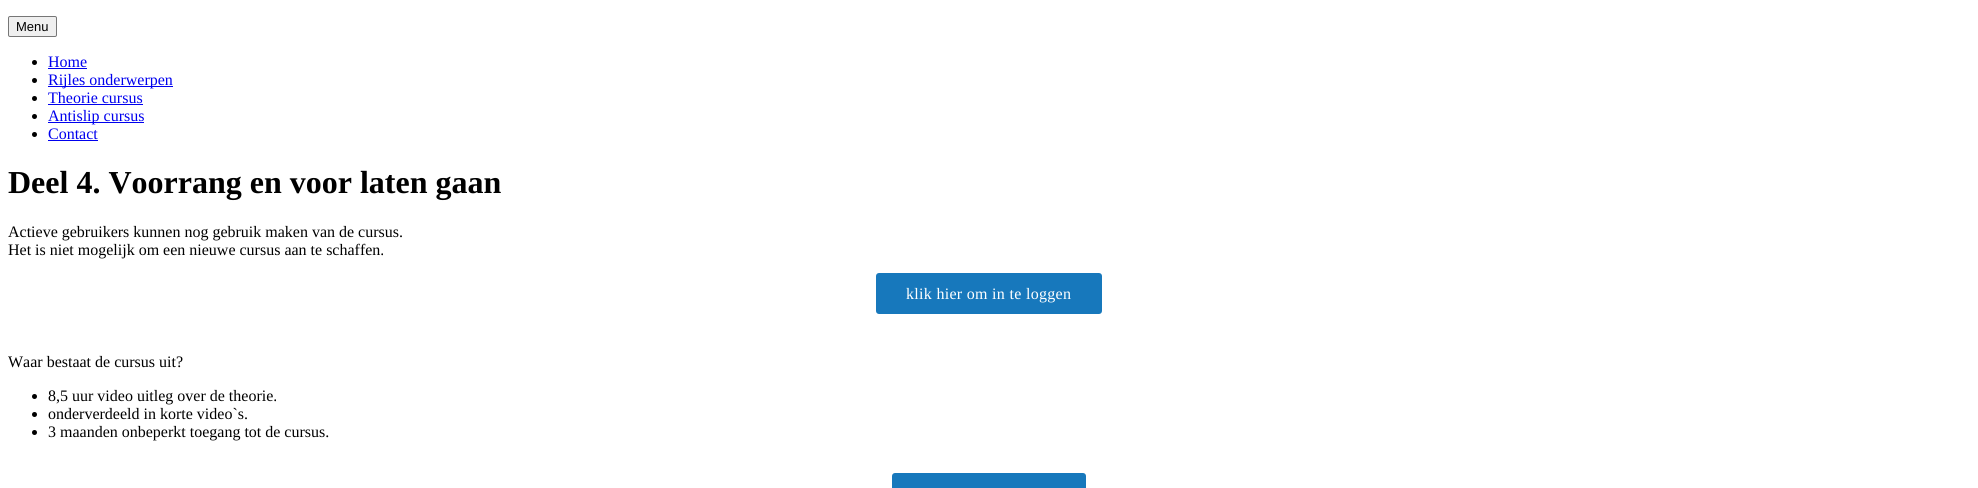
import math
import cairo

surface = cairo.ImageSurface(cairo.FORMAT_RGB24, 1978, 488)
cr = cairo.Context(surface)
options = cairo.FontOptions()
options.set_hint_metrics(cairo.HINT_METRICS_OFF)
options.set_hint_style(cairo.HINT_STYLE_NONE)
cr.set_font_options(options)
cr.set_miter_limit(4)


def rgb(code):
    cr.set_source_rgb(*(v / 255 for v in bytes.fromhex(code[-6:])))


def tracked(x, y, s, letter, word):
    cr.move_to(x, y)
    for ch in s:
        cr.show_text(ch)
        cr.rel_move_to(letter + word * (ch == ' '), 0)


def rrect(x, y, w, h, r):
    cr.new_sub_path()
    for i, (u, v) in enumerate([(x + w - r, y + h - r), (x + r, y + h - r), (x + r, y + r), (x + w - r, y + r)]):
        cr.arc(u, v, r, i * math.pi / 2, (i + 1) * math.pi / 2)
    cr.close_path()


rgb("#ffffff")
cr.paint()
rgb("#efefef")
rrect(8.5, 16.5, 48, 20, 1.5)
cr.fill_preserve()
rgb("#767676")
cr.set_line_width(1)
cr.stroke()
rgb("#000000")
cr.arc(34.5, 62.5, 2.5, 0, 2 * math.pi)
cr.fill()
rgb("#0000ee")
cr.rectangle(48, 68, 39, 1)
cr.fill()
rgb("#000000")
cr.arc(34.5, 80.5, 2.5, 0, 2 * math.pi)
cr.fill()
rgb("#0000ee")
cr.rectangle(48, 86, 125, 1)
cr.fill()
rgb("#000000")
cr.arc(34.5, 98.5, 2.5, 0, 2 * math.pi)
cr.fill()
rgb("#0000ee")
cr.rectangle(48, 104, 95, 1)
cr.fill()
rgb("#000000")
cr.arc(34.5, 116.5, 2.5, 0, 2 * math.pi)
cr.fill()
rgb("#0000ee")
cr.rectangle(48, 122, 96, 1)
cr.fill()
rgb("#000000")
cr.arc(34.5, 134.5, 2.5, 0, 2 * math.pi)
cr.fill()
rgb("#0000ee")
cr.rectangle(48, 140, 50, 1)
cr.fill()
rgb("#1778bc")
rrect(876, 273, 226, 41, 3)
cr.fill()
rgb("#000000")
cr.arc(34.5, 396.5, 2.5, 0, 2 * math.pi)
cr.fill()
cr.arc(34.5, 414.5, 2.5, 0, 2 * math.pi)
cr.fill()
cr.arc(34.5, 432.5, 2.5, 0, 2 * math.pi)
cr.fill()
rgb("#1778bc")
rrect(892, 473, 194, 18, 3)
cr.fill()
cr.select_font_face("Liberation Sans")
cr.set_font_size(13)
rgb("#000000")
cr.move_to(16, 31)
cr.show_text("Menu")
cr.select_font_face("Liberation Serif")
cr.set_font_size(16)
rgb("#0000ee")
for x, y, s in [
    (48, 67, "Home"),
    (48, 85, "Rijles onderwerpen"),
    (48, 103, "Theorie cursus"),
    (48, 121, "Antislip cursus"),
    (48, 139, "Contact"),
]:
    cr.move_to(x, y)
    cr.show_text(s)
cr.select_font_face("Liberation Serif", cairo.FONT_SLANT_NORMAL, cairo.FONT_WEIGHT_BOLD)
cr.set_font_size(32)
rgb("#000000")
cr.move_to(8, 193)
cr.show_text("Deel 4. Voorrang en voor laten gaan")
cr.select_font_face("Liberation Serif")
cr.set_font_size(16)
cr.move_to(8, 237)
cr.show_text("Actieve gebruikers kunnen nog gebruik maken van de cursus.")
cr.move_to(8, 255)
cr.show_text("Het is niet mogelijk om een nieuwe cursus aan te schaffen.")
rgb("#ffffff")
tracked(906, 299, "klik hier om in te loggen", 0.3, 0)
rgb("#000000")
for x, y, s in [
    (8, 367, "Waar bestaat de cursus uit?"),
    (48, 401, "8,5 uur video uitleg over de theorie."),
    (48, 419, "onderverdeeld in korte video`s."),
    (48, 437, "3 maanden onbeperkt toegang tot de cursus."),
]:
    cr.move_to(x, y)
    cr.show_text(s)
surface.write_to_png("page.png")
